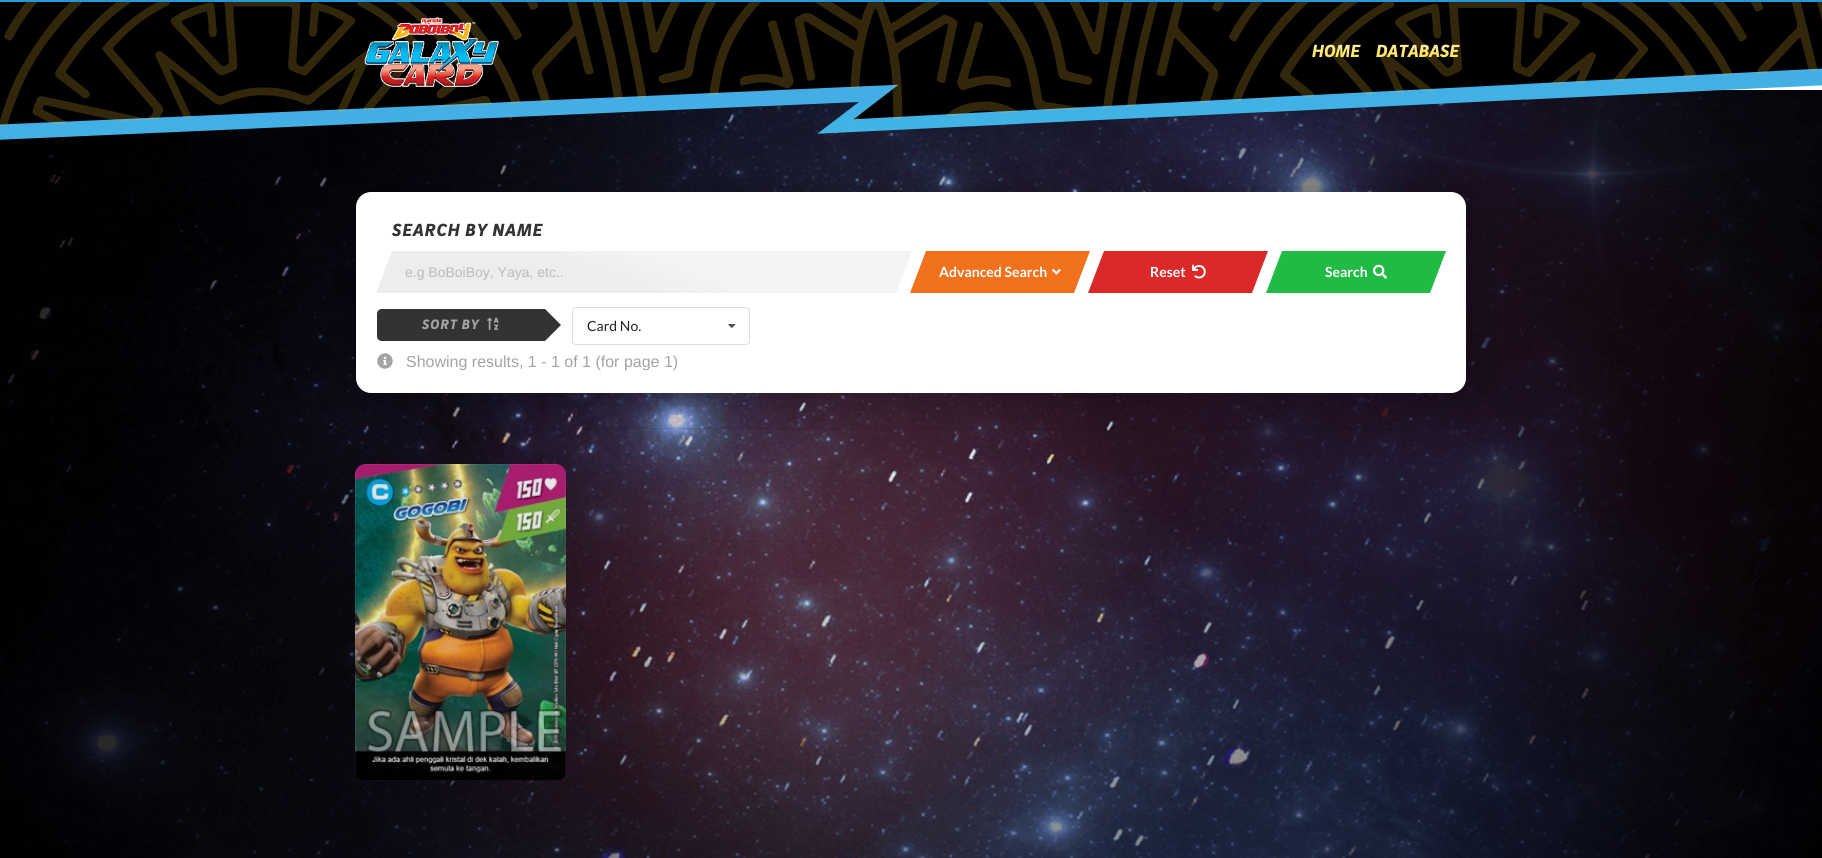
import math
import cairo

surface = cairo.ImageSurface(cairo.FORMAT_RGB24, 1822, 858)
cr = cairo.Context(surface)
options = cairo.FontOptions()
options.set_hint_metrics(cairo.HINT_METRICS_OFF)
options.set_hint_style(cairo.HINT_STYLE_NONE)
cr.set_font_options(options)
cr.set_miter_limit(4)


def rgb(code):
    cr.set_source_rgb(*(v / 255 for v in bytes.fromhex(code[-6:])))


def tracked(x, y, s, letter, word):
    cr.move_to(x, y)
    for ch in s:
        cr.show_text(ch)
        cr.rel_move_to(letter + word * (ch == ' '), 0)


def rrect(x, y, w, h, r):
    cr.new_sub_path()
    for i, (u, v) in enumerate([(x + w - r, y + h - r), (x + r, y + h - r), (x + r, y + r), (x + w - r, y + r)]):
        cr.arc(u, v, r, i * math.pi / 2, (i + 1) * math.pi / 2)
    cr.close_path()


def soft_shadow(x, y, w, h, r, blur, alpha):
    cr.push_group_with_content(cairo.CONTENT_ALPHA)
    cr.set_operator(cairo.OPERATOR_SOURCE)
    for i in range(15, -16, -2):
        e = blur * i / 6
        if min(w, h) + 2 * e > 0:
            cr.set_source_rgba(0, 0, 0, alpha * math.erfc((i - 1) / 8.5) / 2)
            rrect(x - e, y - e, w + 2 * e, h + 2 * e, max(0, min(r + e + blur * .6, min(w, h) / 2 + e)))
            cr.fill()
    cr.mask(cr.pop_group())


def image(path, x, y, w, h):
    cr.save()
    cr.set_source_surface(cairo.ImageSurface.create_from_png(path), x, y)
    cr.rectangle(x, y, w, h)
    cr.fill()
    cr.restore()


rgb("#ffffff")
cr.paint()
rgb("#2299dd")
cr.rectangle(0, 0, 1822, 2)
cr.fill()
image("img/3.png", 0, 90, 1822, 768)
cr.set_source_rgba(0, 0, 0, 0.1)
cr.rectangle(356, 428, 1110, 1)
cr.fill()
rgb("#000000")
soft_shadow(362, 198, 1098, 189, 9, 24, 0.38)
image("img/1.png", 0, 2, 1822, 138)
image("img/2.png", 364, 17, 135, 70)
rgb("#ffffff")
rrect(356, 192, 1110, 201, 15)
cr.fill()
gradient = cairo.LinearGradient(636, 293, 652, 251)
gradient.add_color_stop_rgba(0, 0.929, 0.929, 0.929, 1)
gradient.add_color_stop_rgba(1, 0.957, 0.957, 0.957, 1)
cr.set_source(gradient)
cr.new_path()
cr.move_to(392, 251)
cr.line_to(912, 251)
cr.line_to(896, 293)
cr.line_to(376, 293)
cr.close_path()
cr.fill()
rgb("#f2711c")
cr.new_path()
cr.move_to(926, 251)
cr.line_to(1090, 251)
cr.line_to(1074, 293)
cr.line_to(910, 293)
cr.close_path()
cr.fill()
image("img/4.png", 1052, 269, 9, 6)
rgb("#db2828")
cr.new_path()
cr.move_to(1104, 251)
cr.line_to(1268, 251)
cr.line_to(1252, 293)
cr.line_to(1088, 293)
cr.close_path()
cr.fill()
image("img/5.png", 1192, 264, 14, 15)
rgb("#21ba45")
cr.new_path()
cr.move_to(1282, 251)
cr.line_to(1446, 251)
cr.line_to(1430, 293)
cr.line_to(1266, 293)
cr.close_path()
cr.fill()
image("img/6.png", 1373, 264, 14, 15)
rgb("#333333")
cr.new_path()
cr.move_to(382, 309)
cr.line_to(545, 309)
cr.line_to(545, 341)
cr.line_to(382, 341)
cr.curve_to(379, 341, 377, 339, 377, 336)
cr.line_to(377, 314)
cr.curve_to(377, 311, 379, 309, 382, 309)
cr.close_path()
cr.fill()
image("img/7.png", 487, 317, 12, 13)
cr.new_path()
cr.move_to(545, 341)
cr.line_to(545, 309)
cr.line_to(561, 325)
cr.close_path()
cr.fill()
rrect(572.5, 307.5, 177, 37, 3.5)
rgb("#dedede")
cr.set_line_width(1)
cr.stroke()
image("img/8.png", 728, 324, 8, 4)
image("img/9.png", 377, 353, 16, 16)
image("img/10.png", 355, 464, 211, 317)
cr.select_font_face("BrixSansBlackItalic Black", cairo.FONT_SLANT_ITALIC)
cr.set_font_size(18)
gradient = cairo.LinearGradient(1336, 69, 1336, 35)
gradient.add_color_stop_rgba(0, 1, 0.871, 0, 1)
gradient.add_color_stop_rgba(1, 1, 0.945, 0.89, 1)
cr.set_source(gradient)
cr.move_to(1312, 57)
cr.show_text("HOME")
gradient = cairo.LinearGradient(1417, 69, 1417, 35)
gradient.add_color_stop_rgba(0, 1, 0.871, 0, 1)
gradient.add_color_stop_rgba(1, 1, 0.945, 0.89, 1)
cr.set_source(gradient)
cr.move_to(1376, 57)
cr.show_text("DATABASE")
rgb("#333333")
tracked(392, 236, "SEARCH BY NAME", 1, 0)
cr.select_font_face("Liberation Sans")
cr.set_font_size(14)
rgb("#bababc")
cr.move_to(405, 277)
cr.show_text("e.g BoBoiBoy, Yaya, etc..")
cr.select_font_face("Lato", cairo.FONT_SLANT_NORMAL, cairo.FONT_WEIGHT_BOLD)
rgb("#ffffff")
for x, y, s in [
    (939, 277, "Advanced Search"),
    (1150, 277, "Reset"),
    (1325, 277, "Search"),
]:
    cr.move_to(x, y)
    cr.show_text(s)
cr.select_font_face("BrixSansBlackItalic Black", cairo.FONT_SLANT_ITALIC)
rgb("#a4a4a4")
tracked(422, 329, "SORT BY", 1, 0)
cr.select_font_face("Lato")
rgb("#212121")
cr.move_to(587, 331)
cr.show_text("Card No.")
cr.select_font_face("Liberation Sans")
cr.set_font_size(16)
rgb("#a4a4a4")
cr.move_to(406, 367)
cr.show_text("Showing results, 1 - 1 of 1 (for page 1)")
surface.write_to_png("page.png")
